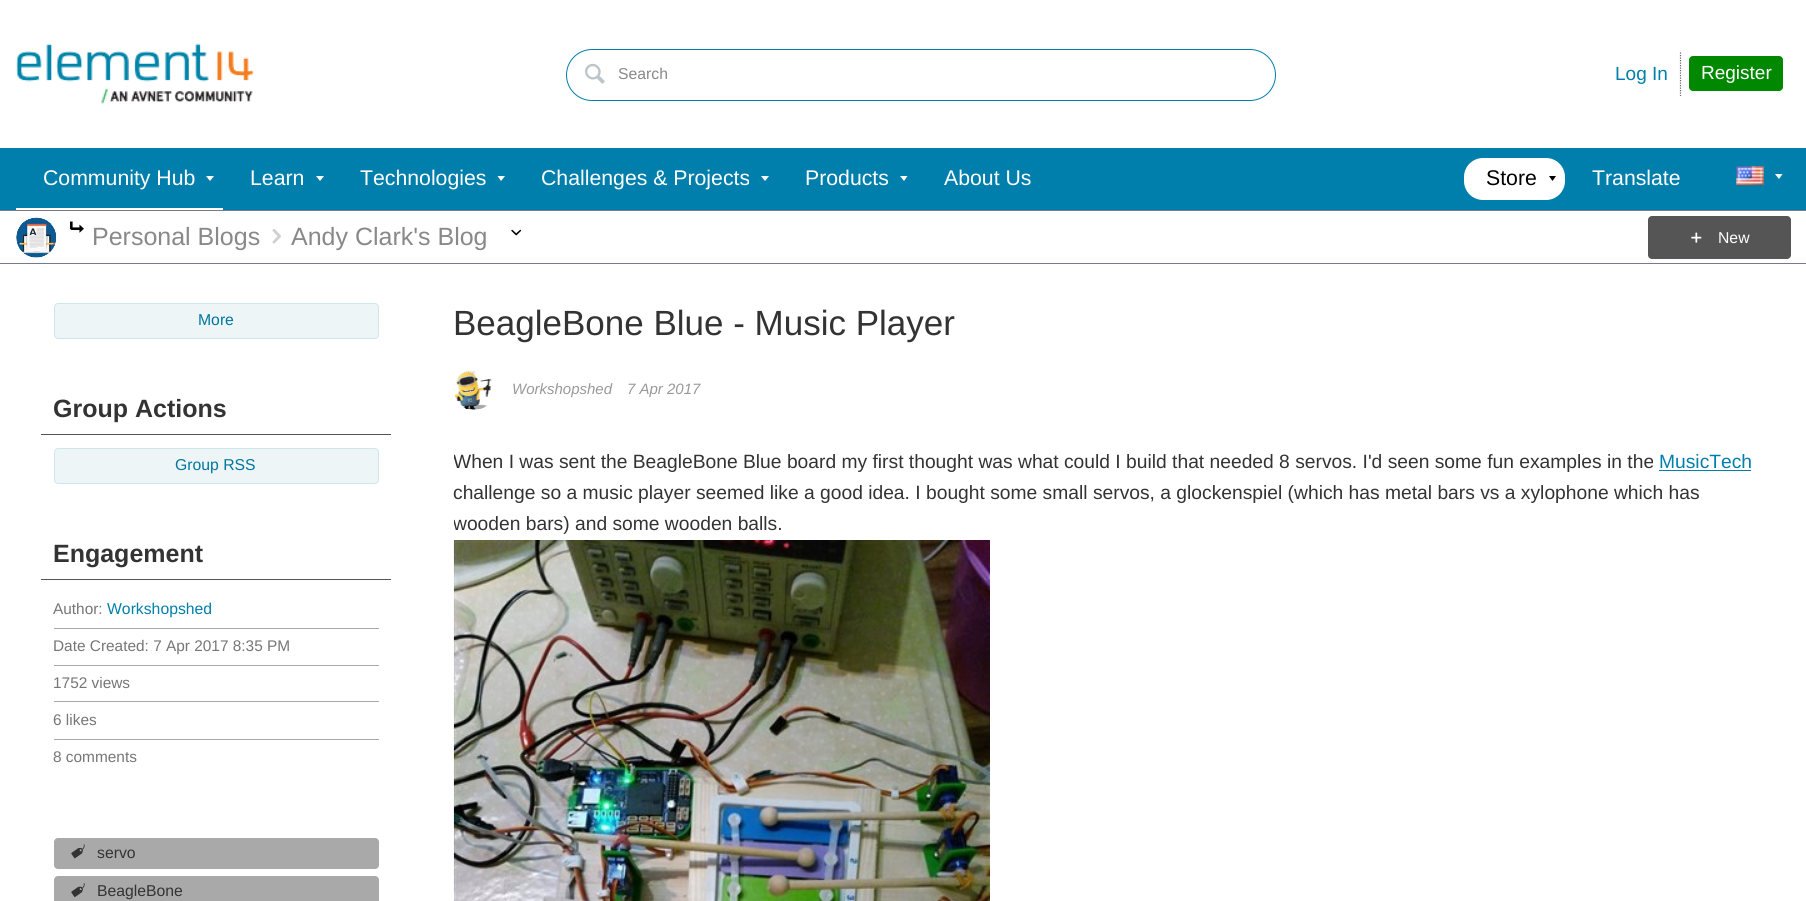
import math
import cairo

surface = cairo.ImageSurface(cairo.FORMAT_RGB24, 1806, 901)
cr = cairo.Context(surface)
options = cairo.FontOptions()
options.set_hint_metrics(cairo.HINT_METRICS_OFF)
options.set_hint_style(cairo.HINT_STYLE_NONE)
cr.set_font_options(options)
cr.set_miter_limit(4)


def rgb(code):
    cr.set_source_rgb(*(v / 255 for v in bytes.fromhex(code[-6:])))


def rrect(x, y, w, h, r):
    cr.new_sub_path()
    for i, (u, v) in enumerate([(x + w - r, y + h - r), (x + r, y + h - r), (x + r, y + r), (x + w - r, y + r)]):
        cr.arc(u, v, r, i * math.pi / 2, (i + 1) * math.pi / 2)
    cr.close_path()


def image(path, x, y, w, h):
    cr.save()
    cr.set_source_surface(cairo.ImageSurface.create_from_png(path), x, y)
    cr.rectangle(x, y, w, h)
    cr.fill()
    cr.restore()


rgb("#ffffff")
cr.paint()
image("img/1.png", 16, 43, 238, 61)
rrect(566.5, 49.5, 709, 51, 25.5)
rgb("#007fac")
cr.set_line_width(1)
cr.stroke()
image("img/2.png", 585, 63, 20, 21)
cr.new_path()
cr.move_to(1680.5, 52.5)
cr.line_to(1680.5, 96)
rgb("#666666")
cr.set_line_width(1.2)
cr.set_dash([1.25, 1.25])
cr.stroke()
rgb("#008800")
rrect(1689, 56, 94, 35, 4)
cr.fill()
rgb("#007fac")
cr.rectangle(0, 148, 1806, 62)
cr.fill()
rgb("#ffffff")
cr.new_path()
cr.move_to(206, 176)
cr.line_to(214, 176)
cr.line_to(210, 181)
cr.close_path()
cr.fill()
cr.rectangle(16, 208, 207, 2)
cr.fill()
cr.new_path()
cr.move_to(316, 176)
cr.line_to(324, 176)
cr.line_to(320, 181)
cr.close_path()
cr.fill()
cr.new_path()
cr.move_to(497.5, 176)
cr.line_to(505, 176)
cr.line_to(501, 181)
cr.close_path()
cr.fill()
cr.new_path()
cr.move_to(761, 176)
cr.line_to(769, 176)
cr.line_to(765, 181)
cr.close_path()
cr.fill()
cr.new_path()
cr.move_to(900, 176)
cr.line_to(907.5, 176)
cr.line_to(904, 181)
cr.close_path()
cr.fill()
rrect(1464, 158, 101, 42, 19)
cr.fill()
rgb("#000000")
cr.new_path()
cr.move_to(1549, 176)
cr.line_to(1556, 176)
cr.line_to(1552.5, 181)
cr.close_path()
cr.fill()
image("img/3.png", 1736, 166, 28, 19)
rgb("#ffffff")
cr.new_path()
cr.move_to(1775, 174)
cr.line_to(1782.5, 174)
cr.line_to(1779, 179)
cr.close_path()
cr.fill()
rgb("#767a8c")
cr.rectangle(0, 210, 1806, 1)
cr.fill()
image("img/4.png", 16, 217, 41, 41)
image("img/5.png", 16, 217, 40, 41)
image("img/6.png", 70, 221, 14, 12)
image("img/7.png", 272, 229, 9, 15)
image("img/8.png", 511, 229, 11, 7)
rgb("#555555")
rrect(1648, 216, 143, 43, 4)
cr.fill()
image("img/9.png", 1691, 232, 11, 11)
rgb("#767a8c")
cr.rectangle(0, 263, 1806, 1)
cr.fill()
rgb("#edf5f7")
rrect(54.5, 303.5, 324, 35, 3.5)
cr.fill_preserve()
rgb("#cfe6ed")
cr.set_line_width(1)
cr.set_dash([])
cr.stroke()
rgb("#555555")
cr.rectangle(41, 434, 350, 1)
cr.fill()
rgb("#edf5f7")
rrect(54.5, 448.5, 324, 35, 3.5)
cr.fill_preserve()
rgb("#cfe6ed")
cr.stroke()
for x, y, w, h, color in [
    (41, 579, 350, 1, "#555555"),
    (54, 628, 325, 1, "#a9a9a9"),
    (54, 665, 325, 1, "#a9a9a9"),
    (54, 701, 325, 1, "#a9a9a9"),
    (54, 739, 325, 1, "#a9a9a9"),
]:
    rgb(color)
    cr.rectangle(x, y, w, h)
    cr.fill()
rrect(54, 838, 325, 31, 4)
cr.fill()
image("img/10.png", 71, 844, 14, 15)
rrect(54, 876, 325, 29, 4)
cr.fill()
image("img/11.png", 71, 883, 14, 14)
image("img/12.png", 454, 370, 38, 40)
image("img/13.png", 454, 372, 38, 37)
rgb("#007fac")
cr.rectangle(1659, 470, 92, 1)
cr.fill()
image("img/14.png", 453, 540, 537, 361)
cr.select_font_face("Liberation Sans")
cr.set_font_size(15.75)
rgb("#898989")
cr.move_to(618, 79)
cr.show_text("Search")
cr.set_font_size(19)
rgb("#007fac")
cr.move_to(1615, 80)
cr.show_text("Log In")
rgb("#ffffff")
cr.move_to(1701, 79)
cr.show_text("Register")
cr.set_font_size(21.25)
for x, y, s in [
    (43, 185, "Community Hub"),
    (250, 185, "Learn"),
    (360, 185, "Technologies"),
    (541, 185, "Challenges & Projects"),
    (805, 185, "Products"),
    (944, 185, "About Us"),
]:
    cr.move_to(x, y)
    cr.show_text(s)
rgb("#000000")
cr.move_to(1486, 185)
cr.show_text("Store")
rgb("#ffffff")
cr.move_to(1592, 185)
cr.show_text("Translate")
cr.set_font_size(25)
rgb("#898989")
cr.move_to(92, 245)
cr.show_text("Personal Blogs")
cr.move_to(291, 245)
cr.show_text("Andy Clark's Blog")
cr.set_font_size(15.75)
rgb("#ffffff")
cr.move_to(1718, 243)
cr.show_text("New")
rgb("#00769f")
cr.move_to(198, 325)
cr.show_text("More")
cr.select_font_face("Liberation Sans", cairo.FONT_SLANT_NORMAL, cairo.FONT_WEIGHT_BOLD)
cr.set_font_size(25)
rgb("#333333")
cr.move_to(53, 417)
cr.show_text("Group Actions")
cr.select_font_face("Liberation Sans")
cr.set_font_size(15.75)
rgb("#00769f")
cr.move_to(175, 470)
cr.show_text("Group RSS")
cr.select_font_face("Liberation Sans", cairo.FONT_SLANT_NORMAL, cairo.FONT_WEIGHT_BOLD)
cr.set_font_size(25)
rgb("#333333")
cr.move_to(53, 562)
cr.show_text("Engagement")
cr.select_font_face("Liberation Sans")
cr.set_font_size(15.4)
rgb("#767676")
cr.move_to(53, 614)
cr.show_text("Author:")
cr.set_font_size(15.75)
rgb("#007fac")
cr.move_to(107, 614)
cr.show_text("Workshopshed")
cr.set_font_size(15.4)
rgb("#767676")
for x, y, s in [
    (53, 651, "Date Created: 7 Apr 2017 8:35 PM"),
    (53, 688, "1752 views"),
    (53, 725, "6 likes"),
    (53, 762, "8 comments"),
]:
    cr.move_to(x, y)
    cr.show_text(s)
cr.set_font_size(15.75)
rgb("#333333")
cr.move_to(97, 858)
cr.show_text("servo")
cr.move_to(97, 896)
cr.show_text("BeagleBone")
cr.set_font_size(35)
cr.move_to(453, 335)
cr.show_text("BeagleBone Blue - Music Player")
cr.select_font_face("Liberation Sans", cairo.FONT_SLANT_ITALIC)
cr.set_font_size(15)
rgb("#999999")
cr.move_to(512, 394)
cr.show_text("Workshopshed")
cr.move_to(627, 394)
cr.show_text("7 Apr 2017")
cr.save()
cr.rectangle(454, 448, 1300, 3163)
cr.clip()
cr.select_font_face("Liberation Sans")
cr.set_font_size(19.25)
rgb("#333333")
cr.move_to(453, 468)
cr.show_text("When I was sent the BeagleBone Blue board my first thought was what could I build that needed 8 servos. I'd seen some fun examples in the")
cr.restore()
cr.select_font_face("Liberation Sans")
cr.set_font_size(19.25)
rgb("#007fac")
cr.move_to(1659, 468)
cr.show_text("MusicTech")
rgb("#333333")
cr.move_to(453, 499)
cr.show_text("challenge so a music player seemed like a good idea. I bought some small servos, a glockenspiel (which has metal bars vs a xylophone which has")
cr.save()
cr.rectangle(454, 448, 1300, 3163)
cr.clip()
cr.move_to(453, 530)
cr.show_text("wooden bars) and some wooden balls.")
cr.restore()
surface.write_to_png("page.png")
